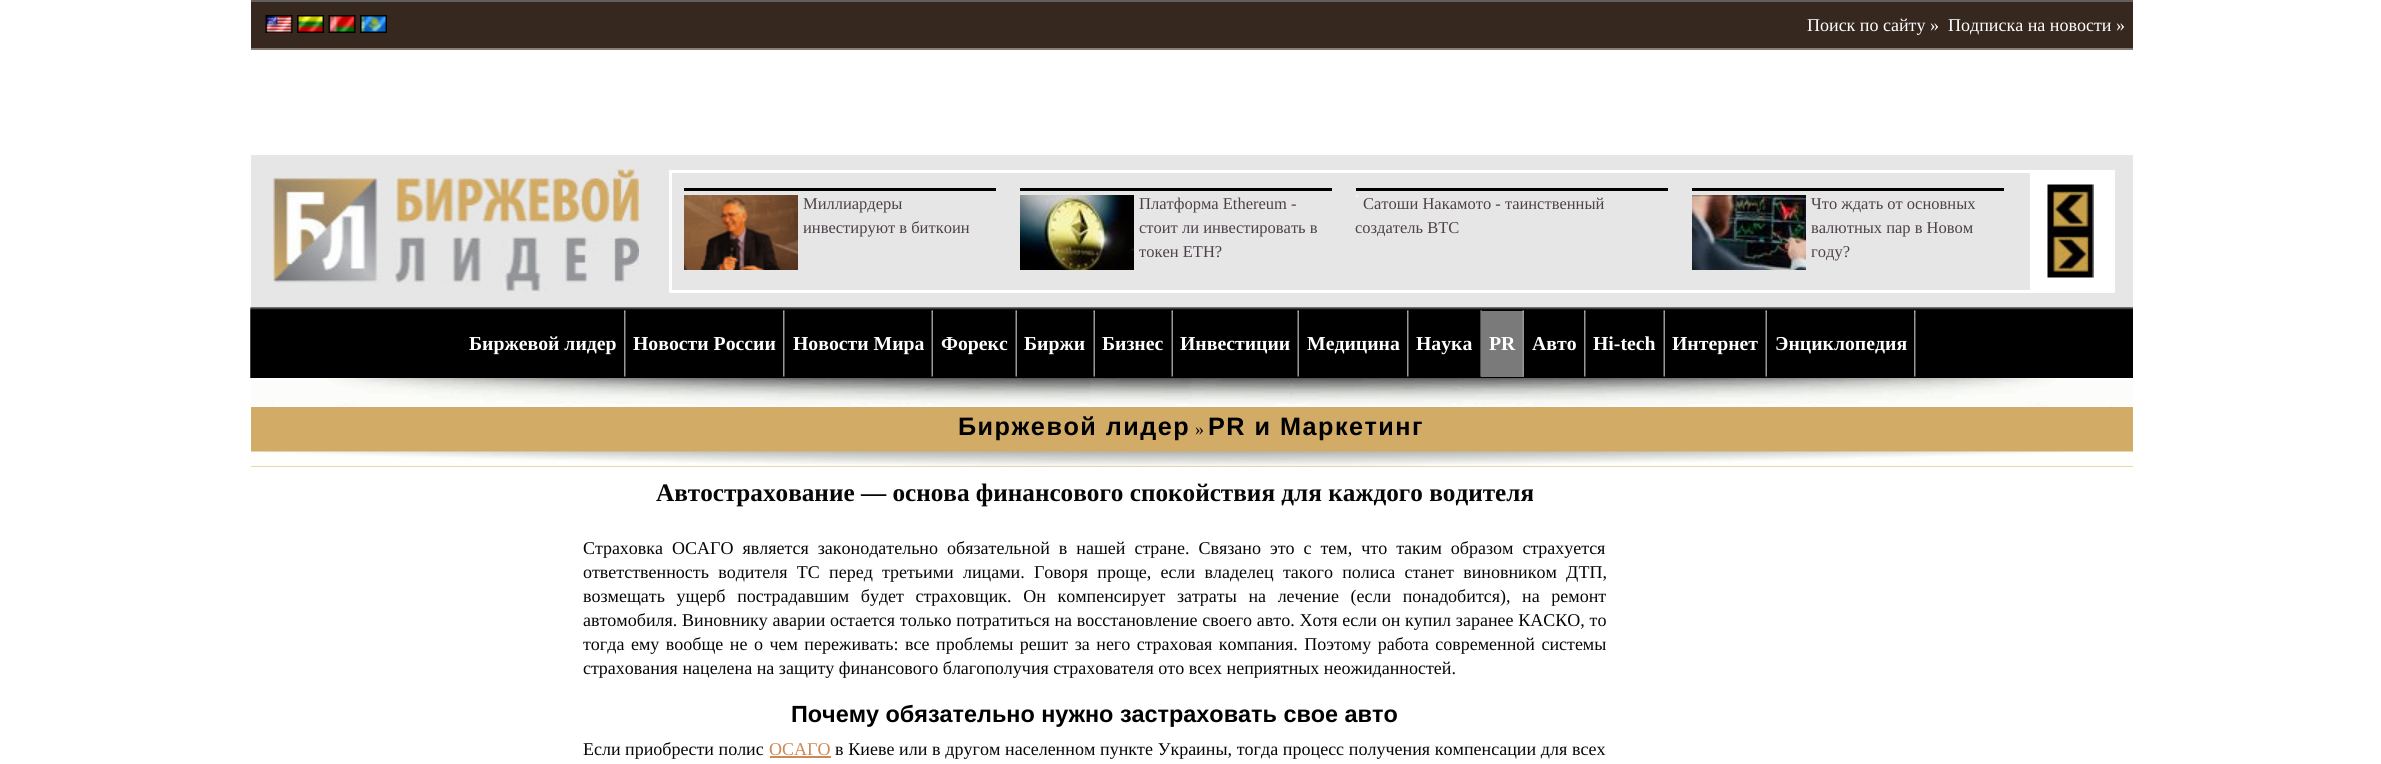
import math
import cairo

surface = cairo.ImageSurface(cairo.FORMAT_RGB24, 2381, 764)
cr = cairo.Context(surface)
options = cairo.FontOptions()
options.set_hint_metrics(cairo.HINT_METRICS_OFF)
options.set_hint_style(cairo.HINT_STYLE_NONE)
cr.set_font_options(options)
cr.set_miter_limit(4)


def rgb(code):
    cr.set_source_rgb(*(v / 255 for v in bytes.fromhex(code[-6:])))


def tracked(x, y, s, letter, word):
    cr.move_to(x, y)
    for ch in s:
        cr.show_text(ch)
        cr.rel_move_to(letter + word * (ch == ' '), 0)


def image(path, x, y, w, h):
    cr.save()
    cr.set_source_surface(cairo.ImageSurface.create_from_png(path), x, y)
    cr.rectangle(x, y, w, h)
    cr.fill()
    cr.restore()


rgb("#ffffff")
cr.paint()
rgb("#5f5f5f")
cr.rectangle(251, 0, 1882, 2)
cr.fill()
rgb("#36281f")
cr.rectangle(251, 2, 1882, 46)
cr.fill()
image("img/1.png", 265, 15, 28, 18)
image("img/2.png", 297, 15, 27, 18)
image("img/3.png", 328, 15, 28, 18)
image("img/4.png", 360, 15, 27, 18)
rgb("#877d74")
cr.rectangle(251, 48, 1882, 2)
cr.fill()
rgb("#e6e6e6")
cr.rectangle(251, 155, 1882, 153)
cr.fill()
image("img/5.png", 273, 165, 366, 126)
cr.rectangle(670.5, 171.5, 1443, 120)
rgb("#ffffff")
cr.set_line_width(3)
cr.stroke()
rgb("#000000")
cr.rectangle(684, 188, 312, 3)
cr.fill()
image("img/6.png", 684, 195, 114, 75)
cr.rectangle(1020, 188, 312, 3)
cr.fill()
image("img/7.png", 1020, 195, 114, 75)
cr.rectangle(1356, 188, 312, 3)
cr.fill()
image("img/8.png", 1356, 195, 2, 2)
cr.rectangle(1692, 188, 312, 3)
cr.fill()
image("img/9.png", 1692, 195, 114, 75)
rgb("#ffffff")
cr.rectangle(2030, 173, 82, 117)
cr.fill()
image("img/10.png", 2047, 184, 47, 47)
image("img/11.png", 2047, 231, 47, 47)
image("img/12.png", 250, 307, 1883, 71)
image("img/13.png", 250, 307, 1883, 71)
image("img/14.png", 624, 310, 2, 67)
image("img/14.png", 783, 310, 2, 67)
image("img/15.png", 931, 310, 2, 67)
image("img/15.png", 1015, 310, 2, 67)
image("img/15.png", 1093, 310, 2, 67)
image("img/15.png", 1171, 310, 2, 67)
image("img/15.png", 1297, 310, 2, 67)
image("img/14.png", 1407, 310, 2, 67)
image("img/15.png", 1480, 310, 2, 67)
rgb("#7a7a7a")
cr.rectangle(1481, 311, 43, 66)
cr.fill()
image("img/16.png", 1522, 310, 2, 67)
image("img/14.png", 1584, 310, 2, 67)
image("img/15.png", 1663, 310, 2, 67)
image("img/15.png", 1765, 310, 2, 67)
image("img/14.png", 1914, 310, 2, 67)
image("img/17.png", 251, 378, 1882, 29)
rgb("#d2ab66")
cr.rectangle(251, 407, 1882, 60)
cr.fill()
image("img/18.png", 251, 451, 1882, 16)
rgb("#cc8855")
cr.rectangle(770, 756, 61, 2)
cr.fill()
cr.select_font_face("Liberation Serif")
cr.set_font_size(18)
rgb("#ffffff")
cr.move_to(1807, 31)
cr.show_text("Поиск по сайту »")
cr.move_to(1948, 31)
cr.show_text("Подписка на новости »")
cr.set_font_size(16.5)
rgb("#4d4049")
for x, y, s in [
    (803, 209, "Миллиардеры"),
    (803, 233, "инвестируют в биткоин"),
    (1139, 209, "Платформа Ethereum -"),
    (1139, 233, "стоит ли инвестировать в"),
    (1139, 257, "токен ETH?"),
    (1363, 209, "Сатоши Накамото - таинственный"),
    (1355, 233, "создатель BTC"),
    (1811, 209, "Что ждать от основных"),
    (1811, 233, "валютных пар в Новом"),
    (1811, 257, "году?"),
]:
    cr.move_to(x, y)
    cr.show_text(s)
cr.select_font_face("Liberation Serif", cairo.FONT_SLANT_NORMAL, cairo.FONT_WEIGHT_BOLD)
cr.set_font_size(19.75)
rgb("#ffffff")
for x, y, s in [
    (469, 350, "Биржевой лидер"),
    (633, 350, "Новости России"),
    (793, 350, "Новости Мира"),
    (941, 350, "Форекс"),
    (1024, 350, "Биржи"),
    (1102, 350, "Бизнес"),
    (1180, 350, "Инвестиции"),
    (1307, 350, "Медицина"),
    (1416, 350, "Наука"),
    (1489, 350, "PR"),
    (1532, 350, "Aвто"),
    (1593, 350, "Hi-tech"),
    (1672, 350, "Интернет"),
    (1775, 350, "Энциклопедия"),
]:
    cr.move_to(x, y)
    cr.show_text(s)
cr.select_font_face("Liberation Sans", cairo.FONT_SLANT_NORMAL, cairo.FONT_WEIGHT_BOLD)
cr.set_font_size(25.2)
rgb("#000000")
tracked(958, 435, "Биржевой лидер", 1.5, 0)
cr.select_font_face("Liberation Serif")
cr.set_font_size(18)
rgb("#060606")
cr.move_to(1195, 435)
cr.show_text("»")
cr.select_font_face("Liberation Sans", cairo.FONT_SLANT_NORMAL, cairo.FONT_WEIGHT_BOLD)
cr.set_font_size(25.2)
rgb("#000000")
tracked(1208, 435, "PR и Маркетинг", 1.5, 0)
cr.select_font_face("Liberation Serif", cairo.FONT_SLANT_NORMAL, cairo.FONT_WEIGHT_BOLD)
rgb("#060606")
cr.move_to(656, 501)
cr.show_text("Автострахование — основа финансового спокойствия для каждого водителя")
cr.select_font_face("Liberation Serif")
cr.set_font_size(18)
tracked(583, 554, "Страховка ОСАГО является законодательно обязательной в нашей стране. Связано это с тем, что таким образом страхуется", 0, 4.5)
tracked(583, 578, "ответственность водителя ТС перед третьими лицами. Говоря проще, если владелец такого полиса станет виновником ДТП,", 0, 4.75)
tracked(583, 602, "возмещать ущерб пострадавшим будет страховщик. Он компенсирует затраты на лечение (если понадобится), на ремонт", 0, 7.1)
tracked(583, 626, "автомобиля. Виновнику аварии остается только потратиться на восстановление своего авто. Хотя если он купил заранее КАСКО, то", 0, 0.25)
tracked(583, 650, "тогда ему вообще не о чем переживать: все проблемы решит за него страховая компания. Поэтому работа современной системы", 0, 2)
cr.move_to(583, 674)
cr.show_text("страхования нацелена на защиту финансового благополучия страхователя ото всех неприятных неожиданностей.")
cr.select_font_face("Liberation Sans", cairo.FONT_SLANT_NORMAL, cairo.FONT_WEIGHT_BOLD)
cr.set_font_size(23.4)
rgb("#000000")
cr.move_to(791, 722)
cr.show_text("Почему обязательно нужно застраховать свое авто")
cr.select_font_face("Liberation Serif")
cr.set_font_size(18)
rgb("#060606")
cr.move_to(583, 755)
cr.show_text("Если приобрести полис")
rgb("#cc8855")
cr.move_to(769, 755)
cr.show_text("ОСАГО")
rgb("#060606")
tracked(835, 755, "в Киеве или в другом населенном пункте Украины, тогда процесс получения компенсации для всех", 0, 0.25)
surface.write_to_png("page.png")
